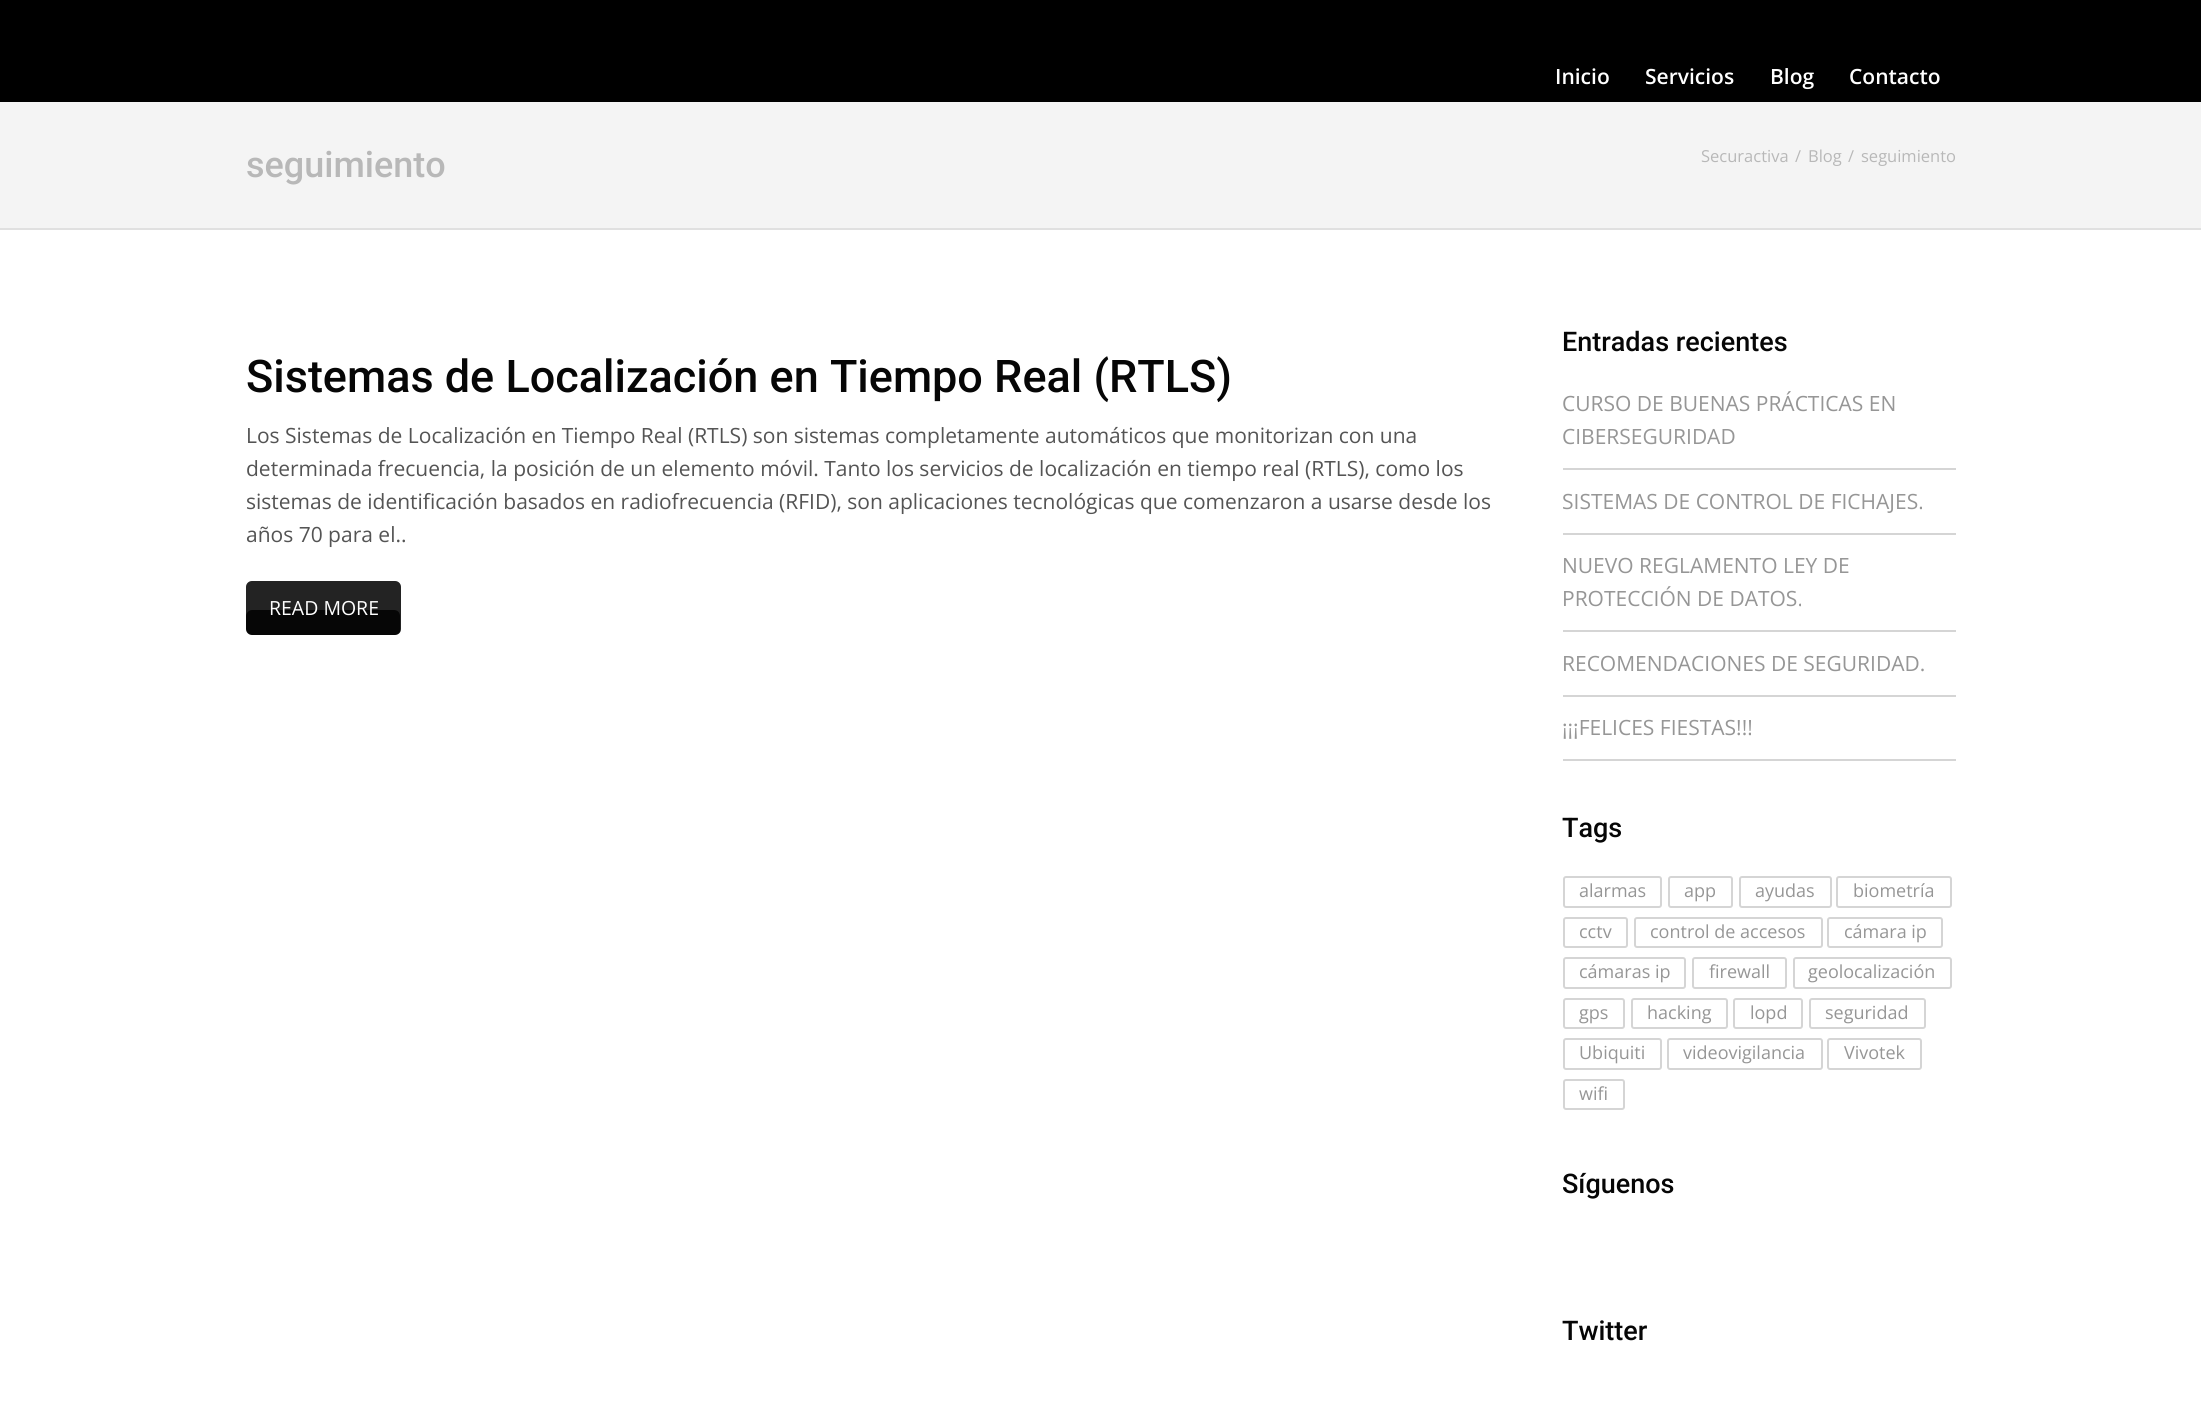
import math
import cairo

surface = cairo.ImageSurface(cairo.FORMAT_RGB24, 2201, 1413)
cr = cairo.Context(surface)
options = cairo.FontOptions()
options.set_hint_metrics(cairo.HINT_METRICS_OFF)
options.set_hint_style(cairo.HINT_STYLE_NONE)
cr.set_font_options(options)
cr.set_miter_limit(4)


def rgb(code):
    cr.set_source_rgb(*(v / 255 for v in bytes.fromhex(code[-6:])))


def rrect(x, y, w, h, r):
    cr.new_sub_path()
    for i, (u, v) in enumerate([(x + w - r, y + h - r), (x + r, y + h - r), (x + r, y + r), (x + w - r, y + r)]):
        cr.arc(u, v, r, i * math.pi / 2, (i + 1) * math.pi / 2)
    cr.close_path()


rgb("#ffffff")
cr.paint()
for x, y, w, h, color in [
    (0, 0, 2201, 102, "#000000"),
    (0, 102, 2201, 126, "#f4f4f4"),
    (0, 228, 2201, 2, "#e0e0e0"),
]:
    rgb(color)
    cr.rectangle(x, y, w, h)
    cr.fill()
rgb("#060606")
rrect(246, 581, 155, 54, 6)
cr.fill()
cr.set_source_rgba(1, 1, 1, 0.12)
cr.new_path()
cr.move_to(252, 610)
cr.line_to(394, 610)
cr.curve_to(398, 610, 400, 613, 400, 616)
cr.line_to(400, 632)
cr.curve_to(401, 631, 401, 630, 401, 629)
cr.line_to(401, 587)
cr.curve_to(401, 584, 398, 581, 395, 581)
cr.line_to(252, 581)
cr.curve_to(249, 581, 246, 584, 246, 587)
cr.line_to(246, 616)
cr.curve_to(246, 613, 249, 610, 252, 610)
cr.close_path()
cr.fill()
for x, y, w, h, color in [
    (1563, 468, 393, 2, "#d5d5d5"),
    (1563, 533, 393, 2, "#d5d5d5"),
    (1563, 630, 393, 2, "#d5d5d5"),
    (1563, 695, 393, 2, "#d5d5d5"),
    (1563, 759, 393, 2, "#d5d5d5"),
]:
    rgb(color)
    cr.rectangle(x, y, w, h)
    cr.fill()
rrect(1564, 877, 97, 30, 2)
cr.stroke()
rrect(1669, 877, 63, 30, 2)
cr.stroke()
rrect(1740, 877, 91, 30, 2)
cr.stroke()
rrect(1837, 877, 114, 30, 2)
cr.stroke()
rrect(1564, 918, 63, 29, 2)
cr.stroke()
rrect(1635, 918, 187, 29, 2)
cr.stroke()
rrect(1828, 918, 114, 29, 2)
cr.stroke()
rrect(1564, 958, 121, 30, 2)
cr.stroke()
rrect(1693, 958, 93, 30, 2)
cr.stroke()
rrect(1794, 958, 157, 30, 2)
cr.stroke()
rrect(1564, 999, 60, 29, 2)
cr.stroke()
rrect(1632, 999, 95, 29, 2)
cr.stroke()
rrect(1734, 999, 68, 29, 2)
cr.stroke()
rrect(1810, 999, 115, 29, 2)
cr.stroke()
rrect(1564, 1039, 97, 30, 2)
cr.stroke()
rrect(1668, 1039, 154, 30, 2)
cr.stroke()
rrect(1828, 1039, 93, 30, 2)
cr.stroke()
rrect(1564, 1080, 60, 29, 2)
cr.stroke()
cr.select_font_face("Open Sans SemiBold")
cr.set_font_size(21)
rgb("#ffffff")
for x, y, s in [
    (1555, 84, "Inicio"),
    (1645, 84, "Servicios"),
    (1770, 84, "Blog"),
    (1849, 84, "Contacto"),
]:
    cr.move_to(x, y)
    cr.show_text(s)
cr.select_font_face("Roboto Medium")
cr.set_font_size(36)
rgb("#b8b8b8")
cr.move_to(246, 177)
cr.show_text("seguimiento")
cr.select_font_face("Open Sans")
cr.set_font_size(16.5)
for x, y, s in [
    (1701, 162, "Securactiva"),
    (1795, 162, "/"),
    (1808, 162, "Blog"),
    (1848, 162, "/"),
    (1861, 162, "seguimiento"),
]:
    cr.move_to(x, y)
    cr.show_text(s)
cr.select_font_face("Roboto Medium")
cr.set_font_size(45)
rgb("#060606")
cr.move_to(246, 392)
cr.show_text("Sistemas de Localización en Tiempo Real (RTLS)")
cr.select_font_face("Open Sans")
cr.set_font_size(21)
rgb("#545454")
for x, y, s in [
    (246, 443, "Los Sistemas de Localización en Tiempo Real (RTLS) son sistemas completamente automáticos que monitorizan con una"),
    (246, 476, "determinada frecuencia, la posición de un elemento móvil. Tanto los servicios de localización en tiempo real (RTLS), como los"),
    (246, 509, "sistemas de identificación basados en radiofrecuencia (RFID), son aplicaciones tecnológicas que comenzaron a usarse desde los"),
    (246, 542, "años 70 para el.."),
]:
    cr.move_to(x, y)
    cr.show_text(s)
cr.set_font_size(19.5)
rgb("#ffffff")
cr.move_to(269, 615)
cr.show_text("READ MORE")
cr.select_font_face("Roboto Medium")
cr.set_font_size(27)
rgb("#060606")
cr.move_to(1562, 351)
cr.show_text("Entradas recientes")
cr.select_font_face("Open Sans")
cr.set_font_size(21)
rgb("#969696")
for x, y, s in [
    (1562, 411, "CURSO DE BUENAS PRÁCTICAS EN"),
    (1562, 444, "CIBERSEGURIDAD"),
    (1562, 509, "SISTEMAS DE CONTROL DE FICHAJES."),
    (1562, 573, "NUEVO REGLAMENTO LEY DE"),
    (1562, 606, "PROTECCIÓN DE DATOS."),
    (1562, 671, "RECOMENDACIONES DE SEGURIDAD."),
    (1562, 735, "¡¡¡FELICES FIESTAS!!!"),
]:
    cr.move_to(x, y)
    cr.show_text(s)
cr.select_font_face("Roboto Medium")
cr.set_font_size(27)
rgb("#060606")
cr.move_to(1562, 837)
cr.show_text("Tags")
cr.select_font_face("Open Sans")
cr.set_font_size(18)
rgb("#969696")
for x, y, s in [
    (1579, 897, "alarmas"),
    (1684, 897, "app"),
    (1755, 897, "ayudas"),
    (1853, 897, "biometría"),
    (1579, 938, "cctv"),
    (1650, 938, "control de accesos"),
    (1844, 938, "cámara ip"),
    (1579, 978, "cámaras ip"),
    (1709, 978, "firewall"),
    (1808, 978, "geolocalización"),
    (1579, 1019, "gps"),
    (1647, 1019, "hacking"),
    (1750, 1019, "lopd"),
    (1825, 1019, "seguridad"),
    (1579, 1059, "Ubiquiti"),
    (1683, 1059, "videovigilancia"),
    (1844, 1059, "Vivotek"),
    (1579, 1100, "wifi"),
]:
    cr.move_to(x, y)
    cr.show_text(s)
cr.select_font_face("Roboto Medium")
cr.set_font_size(27)
rgb("#060606")
cr.move_to(1562, 1193)
cr.show_text("Síguenos")
cr.move_to(1562, 1340)
cr.show_text("Twitter")
surface.write_to_png("page.png")
